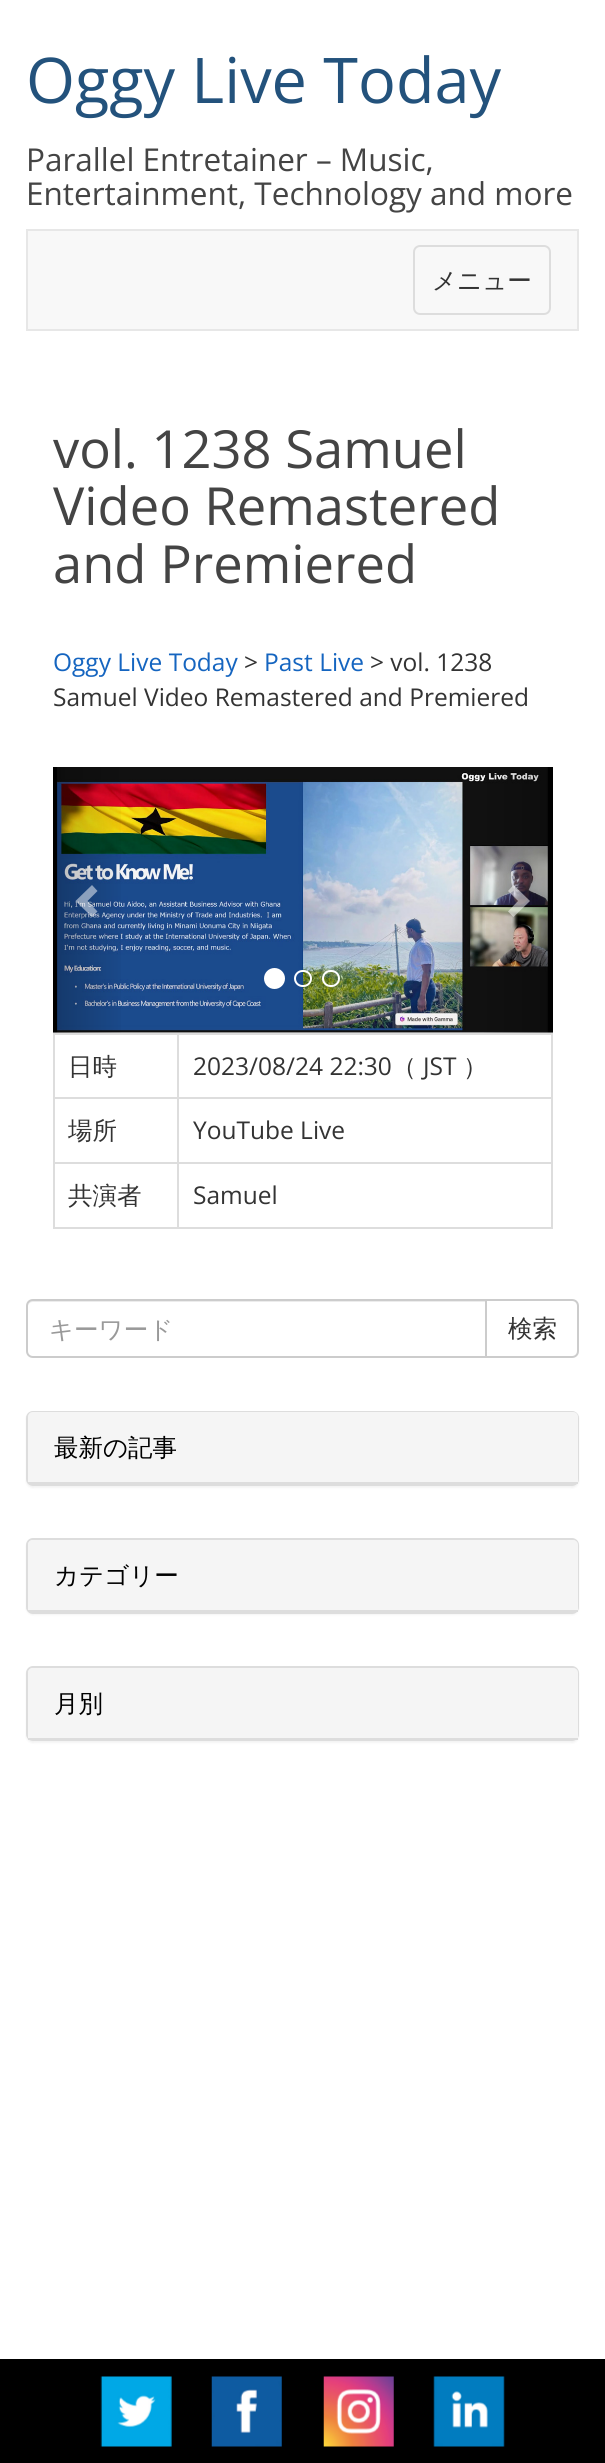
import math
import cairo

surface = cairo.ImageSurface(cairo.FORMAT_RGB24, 605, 2463)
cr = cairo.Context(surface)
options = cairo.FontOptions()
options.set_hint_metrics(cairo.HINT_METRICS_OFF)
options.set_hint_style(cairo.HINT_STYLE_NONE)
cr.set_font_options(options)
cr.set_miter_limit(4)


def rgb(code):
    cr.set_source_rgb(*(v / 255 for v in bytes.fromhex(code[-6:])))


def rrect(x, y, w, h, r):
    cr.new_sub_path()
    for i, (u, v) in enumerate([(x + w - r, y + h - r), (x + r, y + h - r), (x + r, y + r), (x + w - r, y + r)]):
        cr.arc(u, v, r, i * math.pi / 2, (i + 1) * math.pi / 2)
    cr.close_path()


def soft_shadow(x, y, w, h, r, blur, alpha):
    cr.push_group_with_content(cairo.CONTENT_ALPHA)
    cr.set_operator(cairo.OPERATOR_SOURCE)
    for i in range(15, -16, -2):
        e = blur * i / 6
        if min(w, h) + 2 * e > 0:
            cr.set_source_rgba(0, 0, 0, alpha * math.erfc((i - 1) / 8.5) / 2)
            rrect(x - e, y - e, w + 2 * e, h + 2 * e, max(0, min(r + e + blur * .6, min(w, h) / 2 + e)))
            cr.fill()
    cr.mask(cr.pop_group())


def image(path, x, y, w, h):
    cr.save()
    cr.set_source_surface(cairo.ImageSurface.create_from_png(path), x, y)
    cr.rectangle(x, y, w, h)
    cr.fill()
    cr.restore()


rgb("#ffffff")
cr.paint()
rgb("#f8f8f8")
cr.rectangle(27, 230, 551, 100)
cr.fill_preserve()
rgb("#e7e7e7")
cr.stroke()
rrect(414, 246, 136, 68, 6)
rgb("#dddddd")
cr.stroke()
image("img/1.png", 53, 767, 500, 266)
gradient = cairo.LinearGradient(52, 900, 128, 900)
gradient.add_color_stop_rgba(0, 0, 0, 0, 0.25)
gradient.add_color_stop_rgba(1, 0, 0, 0, 0)
cr.set_source(gradient)
cr.rectangle(53, 767, 68, 266)
cr.fill()
cr.set_source_rgba(1, 1, 1, 0.5)
cr.new_path()
cr.move_to(97.5, 891)
cr.line_to(87.5, 901)
cr.line_to(97.5, 911.5)
cr.line_to(92, 917)
cr.line_to(75.5, 901)
cr.line_to(92, 885)
cr.close_path()
cr.fill()
rgb("#ffffff")
cr.arc(274.5, 978.5, 9.5, 0, 2 * math.pi)
cr.fill_preserve()
cr.stroke()
rrect(295, 971, 16, 15, 7.5)
cr.stroke()
rrect(323, 971, 16, 15, 7.5)
cr.stroke()
gradient = cairo.LinearGradient(478, 900, 553, 900)
gradient.add_color_stop_rgba(0, 0, 0, 0, 0)
gradient.add_color_stop_rgba(1, 0, 0, 0, 0.25)
cr.set_source(gradient)
cr.rectangle(484, 767, 69, 266)
cr.fill()
cr.set_source_rgba(1, 1, 1, 0.5)
cr.new_path()
cr.move_to(530, 901)
cr.line_to(513.5, 917)
cr.line_to(508, 911.5)
cr.line_to(518, 901)
cr.line_to(508, 891)
cr.line_to(513.5, 885)
cr.close_path()
cr.fill()
for x, y, w, h, color in [
    (53, 1033, 500, 2, "#dddddd"),
    (551, 1033, 2, 196, "#dddddd"),
    (53, 1227, 500, 2, "#dddddd"),
    (53, 1033, 2, 196, "#dddddd"),
    (177, 1097, 376, 2, "#dddddd"),
    (177, 1162, 376, 2, "#dddddd"),
    (177, 1162, 2, 67, "#dddddd"),
    (53, 1162, 126, 2, "#dddddd"),
    (177, 1097, 2, 67, "#dddddd"),
    (53, 1097, 126, 2, "#dddddd"),
    (177, 1033, 2, 66, "#dddddd"),
]:
    rgb(color)
    cr.rectangle(x, y, w, h)
    cr.fill()
rgb("#ececec")
cr.new_path()
cr.move_to(33, 1302)
cr.line_to(485, 1302)
cr.line_to(485, 1300)
cr.line_to(33, 1300)
cr.curve_to(29, 1300, 28, 1304, 28, 1307)
cr.curve_to(28, 1304, 30, 1302, 33, 1302)
cr.close_path()
cr.fill()
cr.new_path()
cr.move_to(33, 1300)
cr.line_to(486, 1300)
cr.line_to(486, 1357)
cr.line_to(33, 1357)
cr.curve_to(29.5, 1357, 27, 1354.5, 27, 1351)
cr.line_to(27, 1306)
cr.curve_to(27, 1302.5, 29.5, 1300, 33, 1300)
cr.close_path()
rgb("#cccccc")
cr.stroke()
rgb("#ffffff")
cr.new_path()
cr.move_to(486, 1300)
cr.line_to(572, 1300)
cr.curve_to(575.5, 1300, 578, 1302.5, 578, 1306)
cr.line_to(578, 1351)
cr.curve_to(578, 1354.5, 575.5, 1357, 572, 1357)
cr.line_to(486, 1357)
cr.close_path()
cr.fill_preserve()
rgb("#cccccc")
cr.stroke()
rgb("#000000")
soft_shadow(26, 1412, 553, 76, 7, 1, 0.05)
rrect(27, 1412, 551, 73, 6)
rgb("#dddddd")
cr.stroke()
rgb("#f5f5f5")
cr.new_path()
cr.move_to(33, 1412)
cr.line_to(573, 1412)
cr.curve_to(576, 1412, 578, 1414, 578, 1417)
cr.line_to(578, 1484)
cr.line_to(28, 1484)
cr.line_to(28, 1417)
cr.curve_to(28, 1414, 30, 1412, 33, 1412)
cr.close_path()
cr.fill()
rgb("#dddddd")
cr.rectangle(28, 1482, 550, 2)
cr.fill()
rgb("#000000")
soft_shadow(26, 1540, 553, 75, 7, 1, 0.05)
rrect(27, 1539, 551, 74, 6)
rgb("#dddddd")
cr.stroke()
rgb("#f5f5f5")
cr.new_path()
cr.move_to(33, 1540)
cr.line_to(573, 1540)
cr.curve_to(576, 1540, 578, 1542, 578, 1545)
cr.line_to(578, 1612)
cr.line_to(28, 1612)
cr.line_to(28, 1545)
cr.curve_to(28, 1542, 30, 1540, 33, 1540)
cr.close_path()
cr.fill()
rgb("#dddddd")
cr.rectangle(28, 1610, 550, 2)
cr.fill()
rgb("#000000")
soft_shadow(26, 1668, 553, 75, 7, 1, 0.05)
rrect(27, 1667, 551, 73, 6)
rgb("#dddddd")
cr.stroke()
rgb("#f5f5f5")
cr.new_path()
cr.move_to(33, 1668)
cr.line_to(573, 1668)
cr.curve_to(576, 1668, 578, 1670, 578, 1673)
cr.line_to(578, 1740)
cr.line_to(28, 1740)
cr.line_to(28, 1673)
cr.curve_to(28, 1670, 30, 1668, 33, 1668)
cr.close_path()
cr.fill()
rgb("#dddddd")
cr.rectangle(28, 1738, 550, 2)
cr.fill()
rgb("#000000")
cr.rectangle(0, 2359, 605, 104)
cr.fill()
image("img/2.png", 100, 2376, 72, 71)
image("img/3.png", 211, 2376, 71, 71)
image("img/4.png", 323, 2376, 71, 71)
image("img/5.png", 433, 2376, 72, 71)
cr.select_font_face("Open Sans")
cr.set_font_size(63)
rgb("#23527c")
cr.move_to(26, 103)
cr.show_text("Oggy Live Today")
cr.set_font_size(31.5)
rgb("#444444")
cr.move_to(26, 171)
cr.show_text("Parallel Entretainer – Music,")
cr.move_to(26, 205)
cr.show_text("Entertainment, Technology and more")
cr.select_font_face("WenQuanYi Zen Hei Medium")
cr.set_font_size(24.5)
rgb("#333333")
cr.move_to(432, 289)
cr.show_text("メニュー")
cr.select_font_face("Open Sans")
cr.set_font_size(52.5)
rgb("#444444")
for x, y, s in [
    (53, 468, "vol. 1238 Samuel"),
    (53, 525, "Video Remastered"),
    (53, 583, "and Premiered"),
]:
    cr.move_to(x, y)
    cr.show_text(s)
cr.set_font_size(24.5)
rgb("#1565c0")
cr.move_to(53, 671)
cr.show_text("Oggy Live Today")
rgb("#333333")
cr.move_to(244, 671)
cr.show_text(">")
rgb("#1565c0")
cr.move_to(264, 671)
cr.show_text("Past Live")
rgb("#333333")
cr.move_to(370, 671)
cr.show_text("> vol. 1238")
cr.move_to(53, 706)
cr.show_text("Samuel Video Remastered and Premiered")
cr.select_font_face("WenQuanYi Zen Hei Medium")
cr.move_to(68, 1075)
cr.show_text("日時")
cr.select_font_face("Open Sans")
cr.move_to(193, 1075)
cr.show_text("2023/08/24 22:30")
cr.select_font_face("WenQuanYi Zen Hei Medium")
cr.move_to(392, 1075)
cr.show_text("（")
cr.select_font_face("Open Sans")
cr.move_to(423, 1075)
cr.show_text("JST")
cr.select_font_face("WenQuanYi Zen Hei Medium")
cr.move_to(463, 1075)
cr.show_text("）")
cr.move_to(68, 1139)
cr.show_text("場所")
cr.select_font_face("Open Sans")
cr.move_to(193, 1139)
cr.show_text("YouTube Live")
cr.select_font_face("WenQuanYi Zen Hei Medium")
cr.move_to(68, 1204)
cr.show_text("共演者")
cr.select_font_face("Open Sans")
cr.move_to(193, 1204)
cr.show_text("Samuel")
cr.select_font_face("WenQuanYi Zen Hei Medium")
rgb("#999999")
cr.move_to(49, 1338)
cr.show_text("キーワード")
rgb("#333333")
cr.move_to(508, 1337)
cr.show_text("検索")
rgb("#000000")
for x, y, s in [
    (54, 1456, "最新の記事"),
    (54, 1584, "カテゴリー"),
    (54, 1712, "月別"),
]:
    cr.move_to(x, y)
    cr.show_text(s)
surface.write_to_png("page.png")
